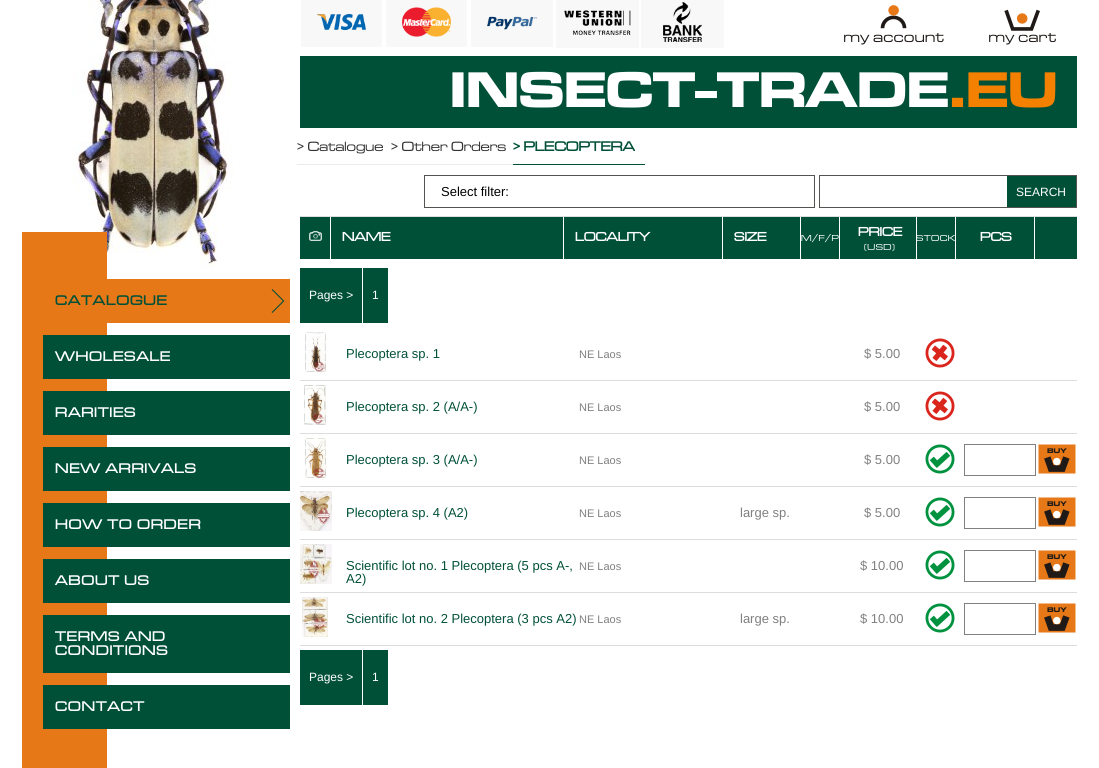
import math
import cairo

surface = cairo.ImageSurface(cairo.FORMAT_RGB24, 1099, 768)
cr = cairo.Context(surface)
options = cairo.FontOptions()
options.set_hint_metrics(cairo.HINT_METRICS_OFF)
options.set_hint_style(cairo.HINT_STYLE_NONE)
cr.set_font_options(options)
cr.set_miter_limit(4)


def rgb(code):
    cr.set_source_rgb(*(v / 255 for v in bytes.fromhex(code[-6:])))


def tracked(x, y, s, letter, word):
    cr.move_to(x, y)
    for ch in s:
        cr.show_text(ch)
        cr.rel_move_to(letter + word * (ch == ' '), 0)


def image(path, x, y, w, h):
    cr.save()
    cr.set_source_surface(cairo.ImageSurface.create_from_png(path), x, y)
    cr.rectangle(x, y, w, h)
    cr.fill()
    cr.restore()


rgb("#ffffff")
cr.paint()
image("img/1.png", 73, 0, 160, 270)
rgb("#e77817")
cr.rectangle(22, 232, 85, 536)
cr.fill()
cr.rectangle(107, 279, 183, 44)
cr.fill()
image("img/2.png", 271, 289, 14, 24)
for x, y, w, h, color in [
    (43, 335, 247, 44, "#005038"),
    (43, 391, 247, 44, "#005038"),
    (43, 447, 247, 44, "#005038"),
    (43, 503, 247, 44, "#005038"),
    (43, 559, 247, 44, "#005038"),
    (43, 615, 247, 58, "#005038"),
    (43, 685, 247, 44, "#005038"),
]:
    rgb(color)
    cr.rectangle(x, y, w, h)
    cr.fill()
image("img/3.png", 301, 0, 81, 47)
image("img/4.png", 386, 0, 81, 47)
image("img/5.png", 471, 0, 82, 47)
image("img/6.png", 556, 0, 83, 48)
image("img/7.png", 641, 0, 83, 48)
image("img/8.png", 844, 5, 100, 40)
image("img/9.png", 989, 9, 67, 36)
for x, y, w, h, color in [
    (300, 56, 777, 72, "#005038"),
    (297, 164, 219, 1, "#ebebeb"),
    (513, 164, 132, 1, "#005038"),
    (300, 216, 777, 1, "#dddddd"),
]:
    rgb(color)
    cr.rectangle(x, y, w, h)
    cr.fill()
cr.rectangle(424.5, 175.5, 390, 32)
rgb("#555350")
cr.set_line_width(1)
cr.stroke()
cr.rectangle(819.5, 175.5, 257, 32)
cr.stroke()
for x, y, w, h, color in [
    (1007, 176, 69, 31, "#005038"),
    (300, 217, 777, 42, "#005038"),
    (330, 217, 1, 42, "#ffffff"),
]:
    rgb(color)
    cr.rectangle(x, y, w, h)
    cr.fill()
image("img/10.png", 309, 231, 13, 10)
for x, y, w, h, color in [
    (563, 217, 1, 42, "#ffffff"),
    (722, 217, 1, 42, "#ffffff"),
    (800, 217, 1, 42, "#ffffff"),
    (839, 217, 1, 42, "#ffffff"),
    (916, 217, 1, 42, "#ffffff"),
    (955, 217, 1, 42, "#ffffff"),
    (1034, 217, 1, 42, "#ffffff"),
    (300, 268, 62, 55, "#005038"),
    (363, 268, 25, 55, "#005038"),
    (300, 380, 777, 1, "#dddddd"),
]:
    rgb(color)
    cr.rectangle(x, y, w, h)
    cr.fill()
image("img/11.png", 305, 332, 21, 40)
image("img/12.png", 925, 338, 30, 30)
cr.rectangle(300, 433, 777, 1)
cr.fill()
image("img/13.png", 304, 385, 22, 40)
image("img/12.png", 925, 391, 30, 30)
cr.rectangle(300, 486, 777, 1)
cr.fill()
image("img/14.png", 305, 438, 21, 40)
image("img/15.png", 925, 444, 30, 30)
cr.rectangle(964.5, 444.5, 71, 31)
rgb("#808080")
cr.stroke()
image("img/16.png", 1038, 444, 38, 30)
rgb("#dddddd")
cr.rectangle(300, 539, 777, 1)
cr.fill()
image("img/17.png", 300, 491, 32, 40)
image("img/15.png", 925, 497, 30, 30)
cr.rectangle(964.5, 497.5, 71, 31)
rgb("#808080")
cr.stroke()
image("img/16.png", 1038, 497, 38, 30)
rgb("#dddddd")
cr.rectangle(300, 592, 777, 1)
cr.fill()
image("img/18.png", 300, 544, 32, 40)
image("img/15.png", 925, 550, 30, 30)
cr.rectangle(964.5, 550.5, 71, 31)
rgb("#808080")
cr.stroke()
image("img/16.png", 1038, 550, 38, 30)
rgb("#dddddd")
cr.rectangle(300, 645, 777, 1)
cr.fill()
image("img/19.png", 302, 597, 26, 40)
image("img/15.png", 925, 603, 30, 30)
cr.rectangle(964.5, 603.5, 71, 31)
rgb("#808080")
cr.stroke()
image("img/16.png", 1038, 603, 38, 30)
rgb("#005038")
cr.rectangle(300, 650, 62, 55)
cr.fill()
cr.rectangle(363, 650, 25, 55)
cr.fill()
cr.select_font_face("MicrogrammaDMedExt", cairo.FONT_SLANT_NORMAL, cairo.FONT_WEIGHT_BOLD)
cr.set_font_size(14)
tracked(55, 305, "CATALOGUE", 1, 0)
rgb("#ffffff")
for x, y, s in [
    (55, 361, "WHOLESALE"),
    (55, 417, "RARITIES"),
    (55, 473, "NEW ARRIVALS"),
    (55, 529, "HOW TO ORDER"),
    (55, 585, "ABOUT US"),
    (55, 641, "TERMS AND"),
    (55, 655, "CONDITIONS"),
    (55, 711, "CONTACT"),
]:
    tracked(x, y, s, 1, 0)
cr.select_font_face("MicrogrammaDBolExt", cairo.FONT_SLANT_NORMAL, cairo.FONT_WEIGHT_BOLD)
cr.set_font_size(52)
cr.move_to(450, 107)
cr.show_text("INSECT-TRADE")
rgb("#f48000")
cr.move_to(949, 107)
cr.show_text(".EU")
cr.select_font_face("MicrogrammaDMedExt")
cr.set_font_size(14)
rgb("#302f31")
cr.move_to(297, 151)
cr.show_text("> Catalogue")
cr.move_to(391, 151)
cr.show_text("> Other Orders")
cr.select_font_face("MicrogrammaDMedExt", cairo.FONT_SLANT_NORMAL, cairo.FONT_WEIGHT_BOLD)
rgb("#005038")
cr.move_to(513, 151)
cr.show_text("> PLECOPTERA")
cr.select_font_face("Liberation Sans")
cr.set_font_size(13)
rgb("#000000")
cr.move_to(441, 196)
cr.show_text("Select filter:")
cr.set_font_size(12)
rgb("#ffffff")
cr.move_to(1016, 196)
cr.show_text("SEARCH")
cr.select_font_face("MicrogrammaDMedExt", cairo.FONT_SLANT_NORMAL, cairo.FONT_WEIGHT_BOLD)
cr.set_font_size(13)
for x, y, s in [
    (342, 241, "NAME"),
    (575, 241, "LOCALITY"),
    (734, 241, "SIZE"),
]:
    cr.move_to(x, y)
    cr.show_text(s)
cr.select_font_face("MicrogrammaDMedExt")
cr.set_font_size(9)
tracked(801, 241, "M/F/P", 0.5, 0)
cr.select_font_face("MicrogrammaDMedExt", cairo.FONT_SLANT_NORMAL, cairo.FONT_WEIGHT_BOLD)
cr.set_font_size(13)
cr.move_to(858, 236)
cr.show_text("PRICE")
cr.select_font_face("MicrogrammaDMedExt")
cr.set_font_size(9)
tracked(864, 250, "(USD)", 0.5, 0)
tracked(916, 241, "STOCK", 0.5, 0)
cr.select_font_face("MicrogrammaDMedExt", cairo.FONT_SLANT_NORMAL, cairo.FONT_WEIGHT_BOLD)
cr.set_font_size(13)
cr.move_to(980, 241)
cr.show_text("PCS")
cr.select_font_face("Liberation Sans")
cr.set_font_size(12)
cr.move_to(309, 299)
cr.show_text("Pages >")
cr.move_to(372, 299)
cr.show_text("1")
cr.set_font_size(13)
rgb("#005038")
cr.move_to(346, 358)
cr.show_text("Plecoptera sp. 1")
cr.set_font_size(11)
rgb("#808080")
cr.move_to(579, 358)
cr.show_text("NE Laos")
cr.set_font_size(13)
cr.move_to(864, 358)
cr.show_text("$ 5.00")
rgb("#005038")
cr.move_to(346, 411)
cr.show_text("Plecoptera sp. 2 (A/A-)")
cr.set_font_size(11)
rgb("#808080")
cr.move_to(579, 411)
cr.show_text("NE Laos")
cr.set_font_size(13)
cr.move_to(864, 411)
cr.show_text("$ 5.00")
rgb("#005038")
cr.move_to(346, 464)
cr.show_text("Plecoptera sp. 3 (A/A-)")
cr.set_font_size(11)
rgb("#808080")
cr.move_to(579, 464)
cr.show_text("NE Laos")
cr.set_font_size(13)
cr.move_to(864, 464)
cr.show_text("$ 5.00")
rgb("#005038")
cr.move_to(346, 517)
cr.show_text("Plecoptera sp. 4 (A2)")
cr.set_font_size(11)
rgb("#808080")
cr.move_to(579, 517)
cr.show_text("NE Laos")
cr.set_font_size(13)
cr.move_to(740, 517)
cr.show_text("large sp.")
cr.move_to(864, 517)
cr.show_text("$ 5.00")
rgb("#005038")
cr.move_to(346, 570)
cr.show_text("Scientific lot no. 1 Plecoptera (5 pcs A-,")
cr.move_to(346, 583)
cr.show_text("A2)")
cr.set_font_size(11)
rgb("#808080")
cr.move_to(579, 570)
cr.show_text("NE Laos")
cr.set_font_size(13)
cr.move_to(860, 570)
cr.show_text("$ 10.00")
rgb("#005038")
cr.move_to(346, 623)
cr.show_text("Scientific lot no. 2 Plecoptera (3 pcs A2)")
cr.set_font_size(11)
rgb("#808080")
cr.move_to(579, 623)
cr.show_text("NE Laos")
cr.set_font_size(13)
cr.move_to(740, 623)
cr.show_text("large sp.")
cr.move_to(860, 623)
cr.show_text("$ 10.00")
cr.set_font_size(12)
rgb("#ffffff")
cr.move_to(309, 681)
cr.show_text("Pages >")
cr.move_to(372, 681)
cr.show_text("1")
surface.write_to_png("page.png")
